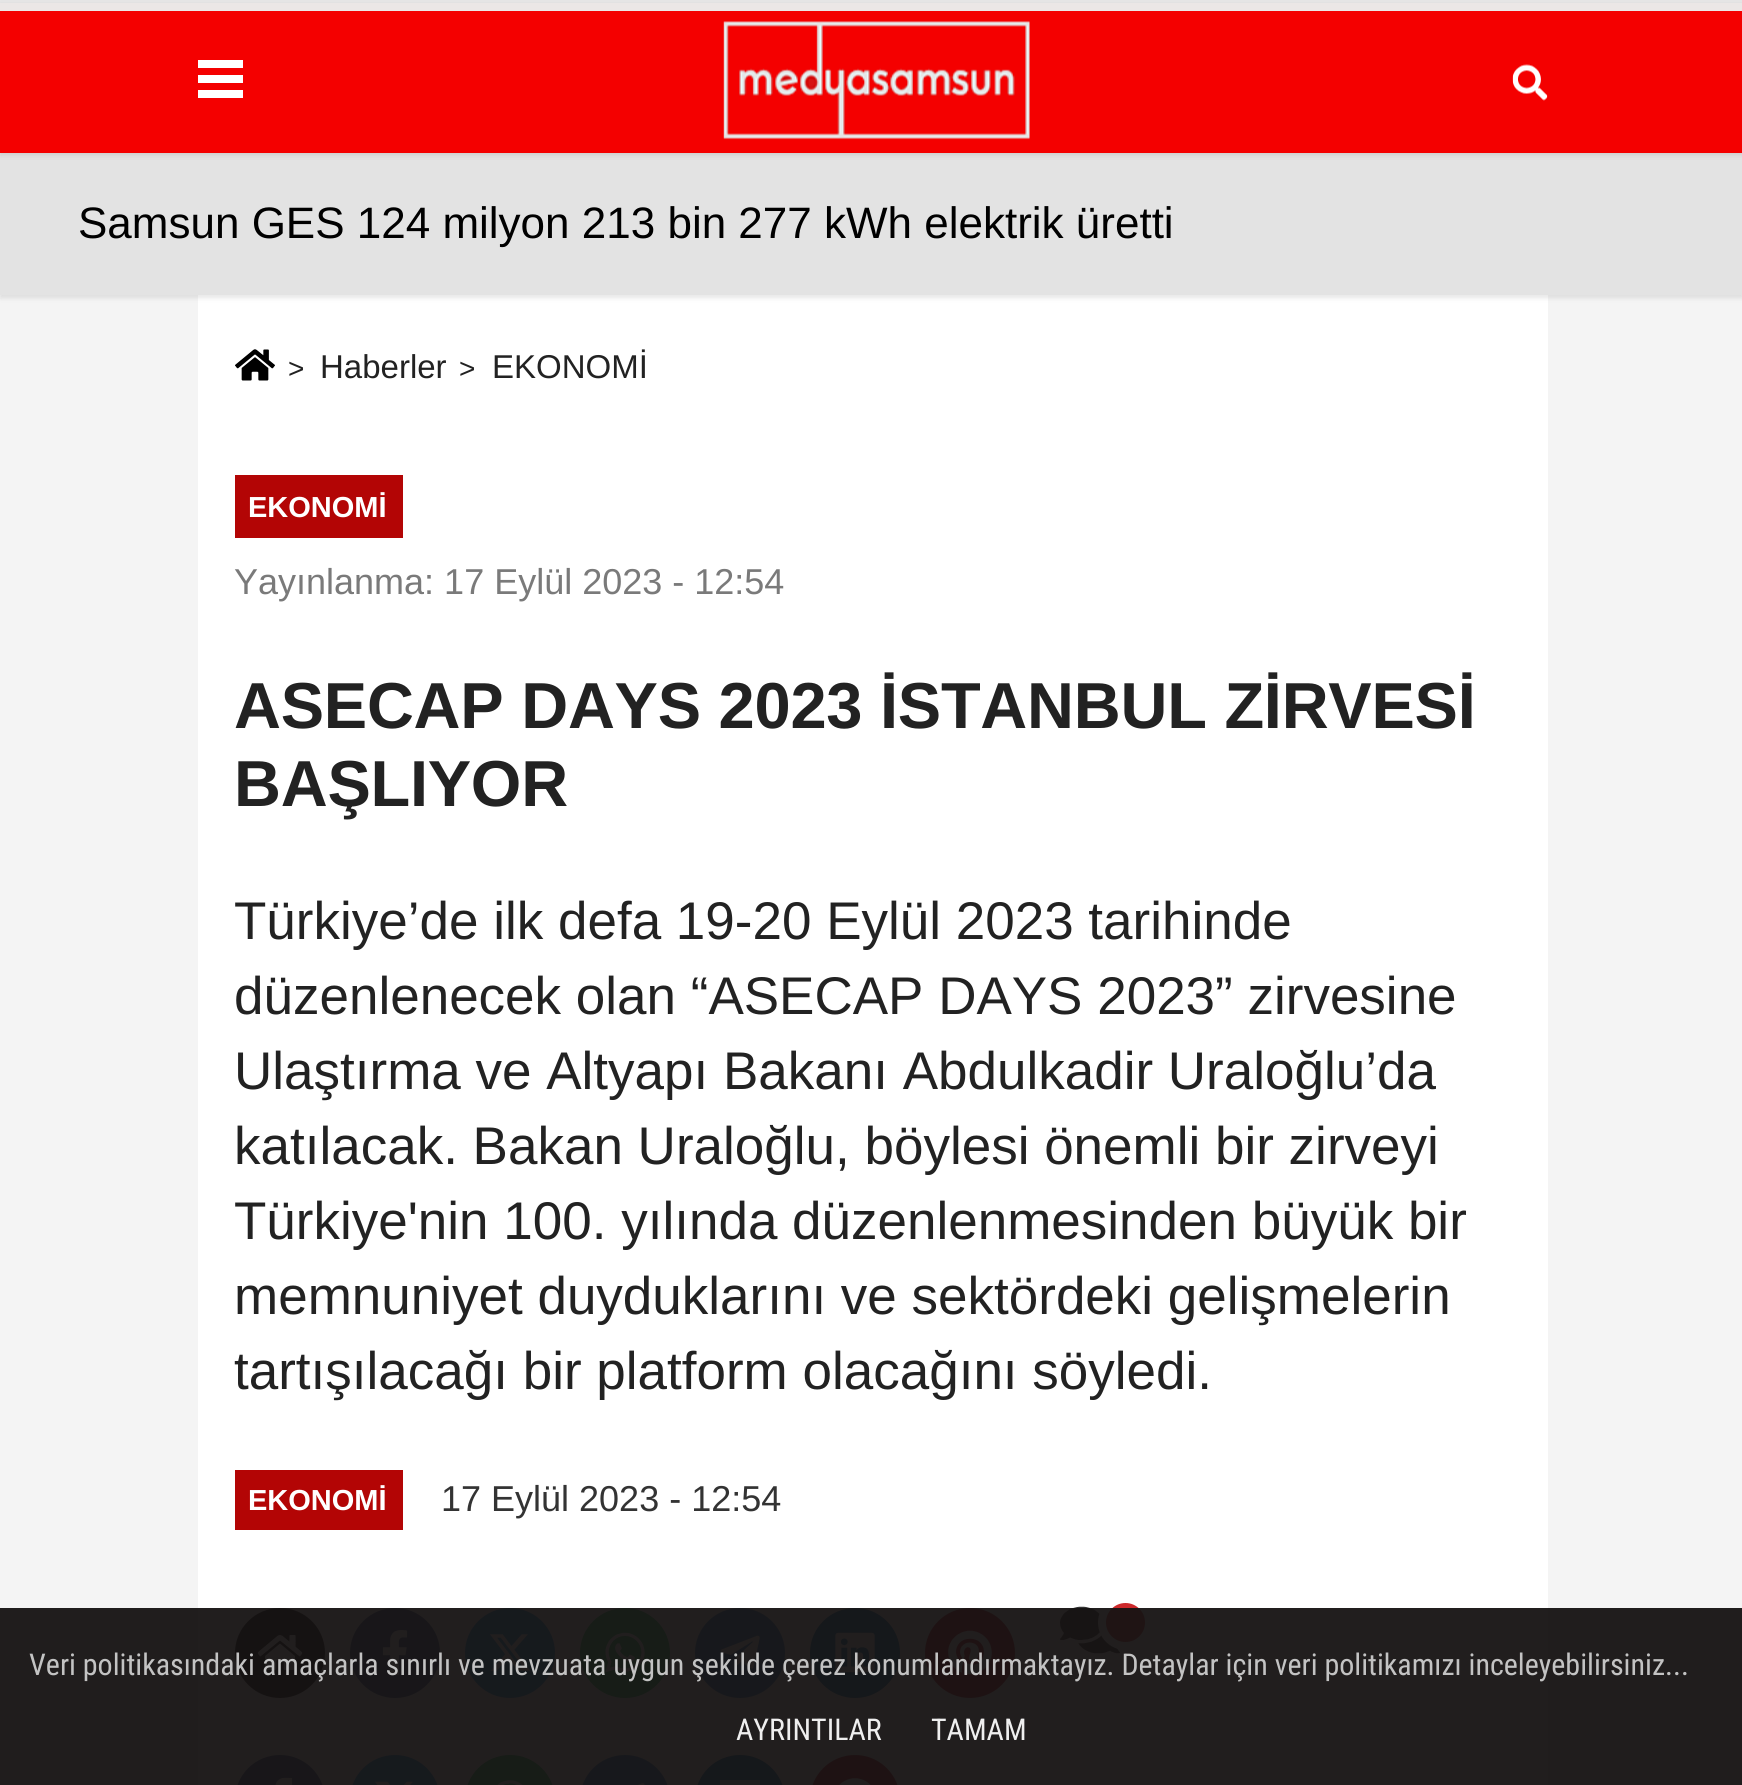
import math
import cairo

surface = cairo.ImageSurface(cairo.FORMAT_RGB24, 1742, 1785)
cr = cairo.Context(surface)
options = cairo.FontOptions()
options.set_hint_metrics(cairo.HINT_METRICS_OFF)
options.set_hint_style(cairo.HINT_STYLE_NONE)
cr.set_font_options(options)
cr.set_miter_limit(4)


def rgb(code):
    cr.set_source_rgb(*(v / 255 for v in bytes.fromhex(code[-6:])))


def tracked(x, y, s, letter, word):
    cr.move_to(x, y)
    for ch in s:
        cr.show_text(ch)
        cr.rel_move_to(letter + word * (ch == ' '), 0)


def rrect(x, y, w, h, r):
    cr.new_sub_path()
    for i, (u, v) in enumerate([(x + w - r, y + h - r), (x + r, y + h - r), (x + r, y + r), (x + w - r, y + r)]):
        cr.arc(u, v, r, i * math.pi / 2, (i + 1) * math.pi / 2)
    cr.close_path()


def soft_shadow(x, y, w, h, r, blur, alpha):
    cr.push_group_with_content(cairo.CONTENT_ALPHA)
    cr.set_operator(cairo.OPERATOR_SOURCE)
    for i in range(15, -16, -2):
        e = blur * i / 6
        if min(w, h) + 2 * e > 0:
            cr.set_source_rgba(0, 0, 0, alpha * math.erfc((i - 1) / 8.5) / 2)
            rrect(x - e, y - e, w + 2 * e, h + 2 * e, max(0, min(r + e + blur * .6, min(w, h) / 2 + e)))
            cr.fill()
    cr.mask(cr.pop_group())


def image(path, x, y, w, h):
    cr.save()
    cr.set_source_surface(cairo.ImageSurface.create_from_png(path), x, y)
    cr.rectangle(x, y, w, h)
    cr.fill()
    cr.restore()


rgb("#f4f4f4")
cr.paint()
rgb("#e6e6e6")
cr.rectangle(0, 0, 1742, 3)
cr.fill()
rgb("#ffffff")
cr.rectangle(198, 295, 1350, 1490)
cr.fill()
rgb("#000000")
soft_shadow(0, 155, 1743, 143, 0, 2.5, 0.1)
rgb("#e3e3e3")
cr.rectangle(0, 153, 1742, 142)
cr.fill()
rgb("#000000")
soft_shadow(0, 5, 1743, 150, 0, 2.5, 0.1)
for x, y, w, h, color in [
    (0, 11, 1742, 142, "#f40000"),
    (0, 3, 1742, 8, "#ebe7e6"),
    (198, 60, 45, 8, "#ffffff"),
    (198, 75, 45, 8, "#ffffff"),
    (198, 90, 45, 8, "#ffffff"),
]:
    rgb(color)
    cr.rectangle(x, y, w, h)
    cr.fill()
image("img/1.png", 723, 21, 307, 119)
image("img/2.png", 1512, 64, 36, 37)
image("img/3.png", 235, 349, 40, 32)
rgb("#b30505")
cr.rectangle(235, 475, 168, 63)
cr.fill()
cr.rectangle(235, 1470, 168, 60)
cr.fill()
rgb("#000000")
cr.arc(280, 1653, 45, 0, 2 * math.pi)
cr.fill()
image("img/4.png", 257, 1635, 46, 35)
rgb("#3b5998")
cr.arc(395, 1653, 45, 0, 2 * math.pi)
cr.fill()
image("img/5.png", 382, 1630, 26, 45)
rgb("#1da1f2")
cr.arc(510, 1653, 45, 0, 2 * math.pi)
cr.fill()
image("img/6.png", 490, 1634, 41, 37)
rgb("#25d366")
cr.arc(625, 1653, 45, 0, 2 * math.pi)
cr.fill()
image("img/7.png", 605, 1632, 40, 41)
rgb("#2e87ca")
cr.arc(740, 1653, 45, 0, 2 * math.pi)
cr.fill()
image("img/8.png", 720, 1635, 40, 34)
rgb("#0077b5")
cr.arc(855, 1653, 45, 0, 2 * math.pi)
cr.fill()
image("img/9.png", 835, 1632, 40, 41)
rgb("#bd081c")
cr.arc(970, 1653, 45, 0, 2 * math.pi)
cr.fill()
image("img/10.png", 948, 1630, 44, 45)
image("img/11.png", 1060, 1606, 60, 48)
rgb("#cc292b")
cr.arc(1125.5, 1622.5, 23.5, 0, 2 * math.pi)
cr.fill_preserve()
rgb("#ffffff")
cr.set_line_width(8)
cr.stroke()
rgb("#3b5998")
rrect(235, 1755, 90, 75, 45)
cr.fill()
image("img/12.png", 275, 1777, 18, 8)
rgb("#1da1f2")
rrect(350, 1755, 90, 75, 45)
cr.fill()
image("img/13.png", 375, 1781, 38, 4)
rgb("#25d366")
rrect(465, 1755, 90, 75, 45)
cr.fill()
image("img/14.png", 497, 1780, 26, 5)
rgb("#2e87ca")
rrect(580, 1755, 90, 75, 45)
cr.fill()
image("img/15.png", 637, 1783, 8, 2)
rgb("#0077b5")
rrect(695, 1755, 90, 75, 45)
cr.fill()
rgb("#ffffff")
cr.rectangle(720, 1780, 40, 5)
cr.fill()
rgb("#bd081c")
rrect(810, 1755, 90, 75, 45)
cr.fill()
image("img/16.png", 839, 1778, 32, 7)
cr.set_source_rgba(0.09, 0.078, 0.078, 0.95)
cr.rectangle(0, 1608, 1742, 177)
cr.fill()
cr.select_font_face("Liberation Sans")
cr.set_font_size(44)
rgb("#000000")
cr.move_to(78, 238)
cr.show_text("Samsun GES 124 milyon 213 bin 277 kWh elektrik üretti")
cr.set_font_size(28)
rgb("#222222")
cr.move_to(288, 378)
cr.show_text(">")
cr.set_font_size(33)
cr.move_to(320, 378)
cr.show_text("Haberler")
cr.set_font_size(28)
cr.move_to(459, 378)
cr.show_text(">")
cr.set_font_size(33)
cr.move_to(492, 378)
cr.show_text("EKONOMİ")
cr.select_font_face("Liberation Sans", cairo.FONT_SLANT_NORMAL, cairo.FONT_WEIGHT_BOLD)
cr.set_font_size(29)
rgb("#ffffff")
cr.move_to(248, 517)
cr.show_text("EKONOMİ")
cr.select_font_face("Liberation Sans")
cr.set_font_size(36)
rgb("#7a7a7a")
cr.move_to(234, 594)
cr.show_text("Yayınlanma: 17 Eylül 2023 - 12:54")
cr.select_font_face("Liberation Sans", cairo.FONT_SLANT_NORMAL, cairo.FONT_WEIGHT_BOLD)
cr.set_font_size(65)
rgb("#222222")
tracked(234, 728, "ASECAP DAYS 2023 İSTANBUL ZİRVESİ", -0.25, 0)
tracked(234, 806, "BAŞLIYOR", -0.25, 0)
cr.select_font_face("Liberation Sans")
cr.set_font_size(53)
for x, y, s in [
    (234, 939, "Türkiye’de ilk defa 19-20 Eylül 2023 tarihinde"),
    (234, 1014, "düzenlenecek olan “ASECAP DAYS 2023” zirvesine"),
    (234, 1089, "Ulaştırma ve Altyapı Bakanı Abdulkadir Uraloğlu’da"),
    (234, 1164, "katılacak. Bakan Uraloğlu, böylesi önemli bir zirveyi"),
    (234, 1239, "Türkiye'nin 100. yılında düzenlenmesinden büyük bir"),
    (234, 1314, "memnuniyet duyduklarını ve sektördeki gelişmelerin"),
    (234, 1389, "tartışılacağı bir platform olacağını söyledi."),
]:
    cr.move_to(x, y)
    cr.show_text(s)
cr.select_font_face("Liberation Sans", cairo.FONT_SLANT_NORMAL, cairo.FONT_WEIGHT_BOLD)
cr.set_font_size(29)
rgb("#ffffff")
cr.move_to(248, 1510)
cr.show_text("EKONOMİ")
cr.select_font_face("Liberation Sans")
cr.set_font_size(36)
rgb("#333333")
cr.move_to(441, 1511)
cr.show_text("17 Eylül 2023 - 12:54")
cr.select_font_face("Roboto Condensed")
cr.set_font_size(30)
rgb("#c3c3c3")
cr.move_to(29, 1675)
cr.show_text("Veri politikasındaki amaçlarla sınırlı ve mevzuata uygun şekilde çerez konumlandırmaktayız. Detaylar için veri politikamızı inceleyebilirsiniz...")
rgb("#efefef")
cr.move_to(736, 1740)
cr.show_text("AYRINTILAR")
cr.move_to(931, 1740)
cr.show_text("TAMAM")
surface.write_to_png("page.png")
